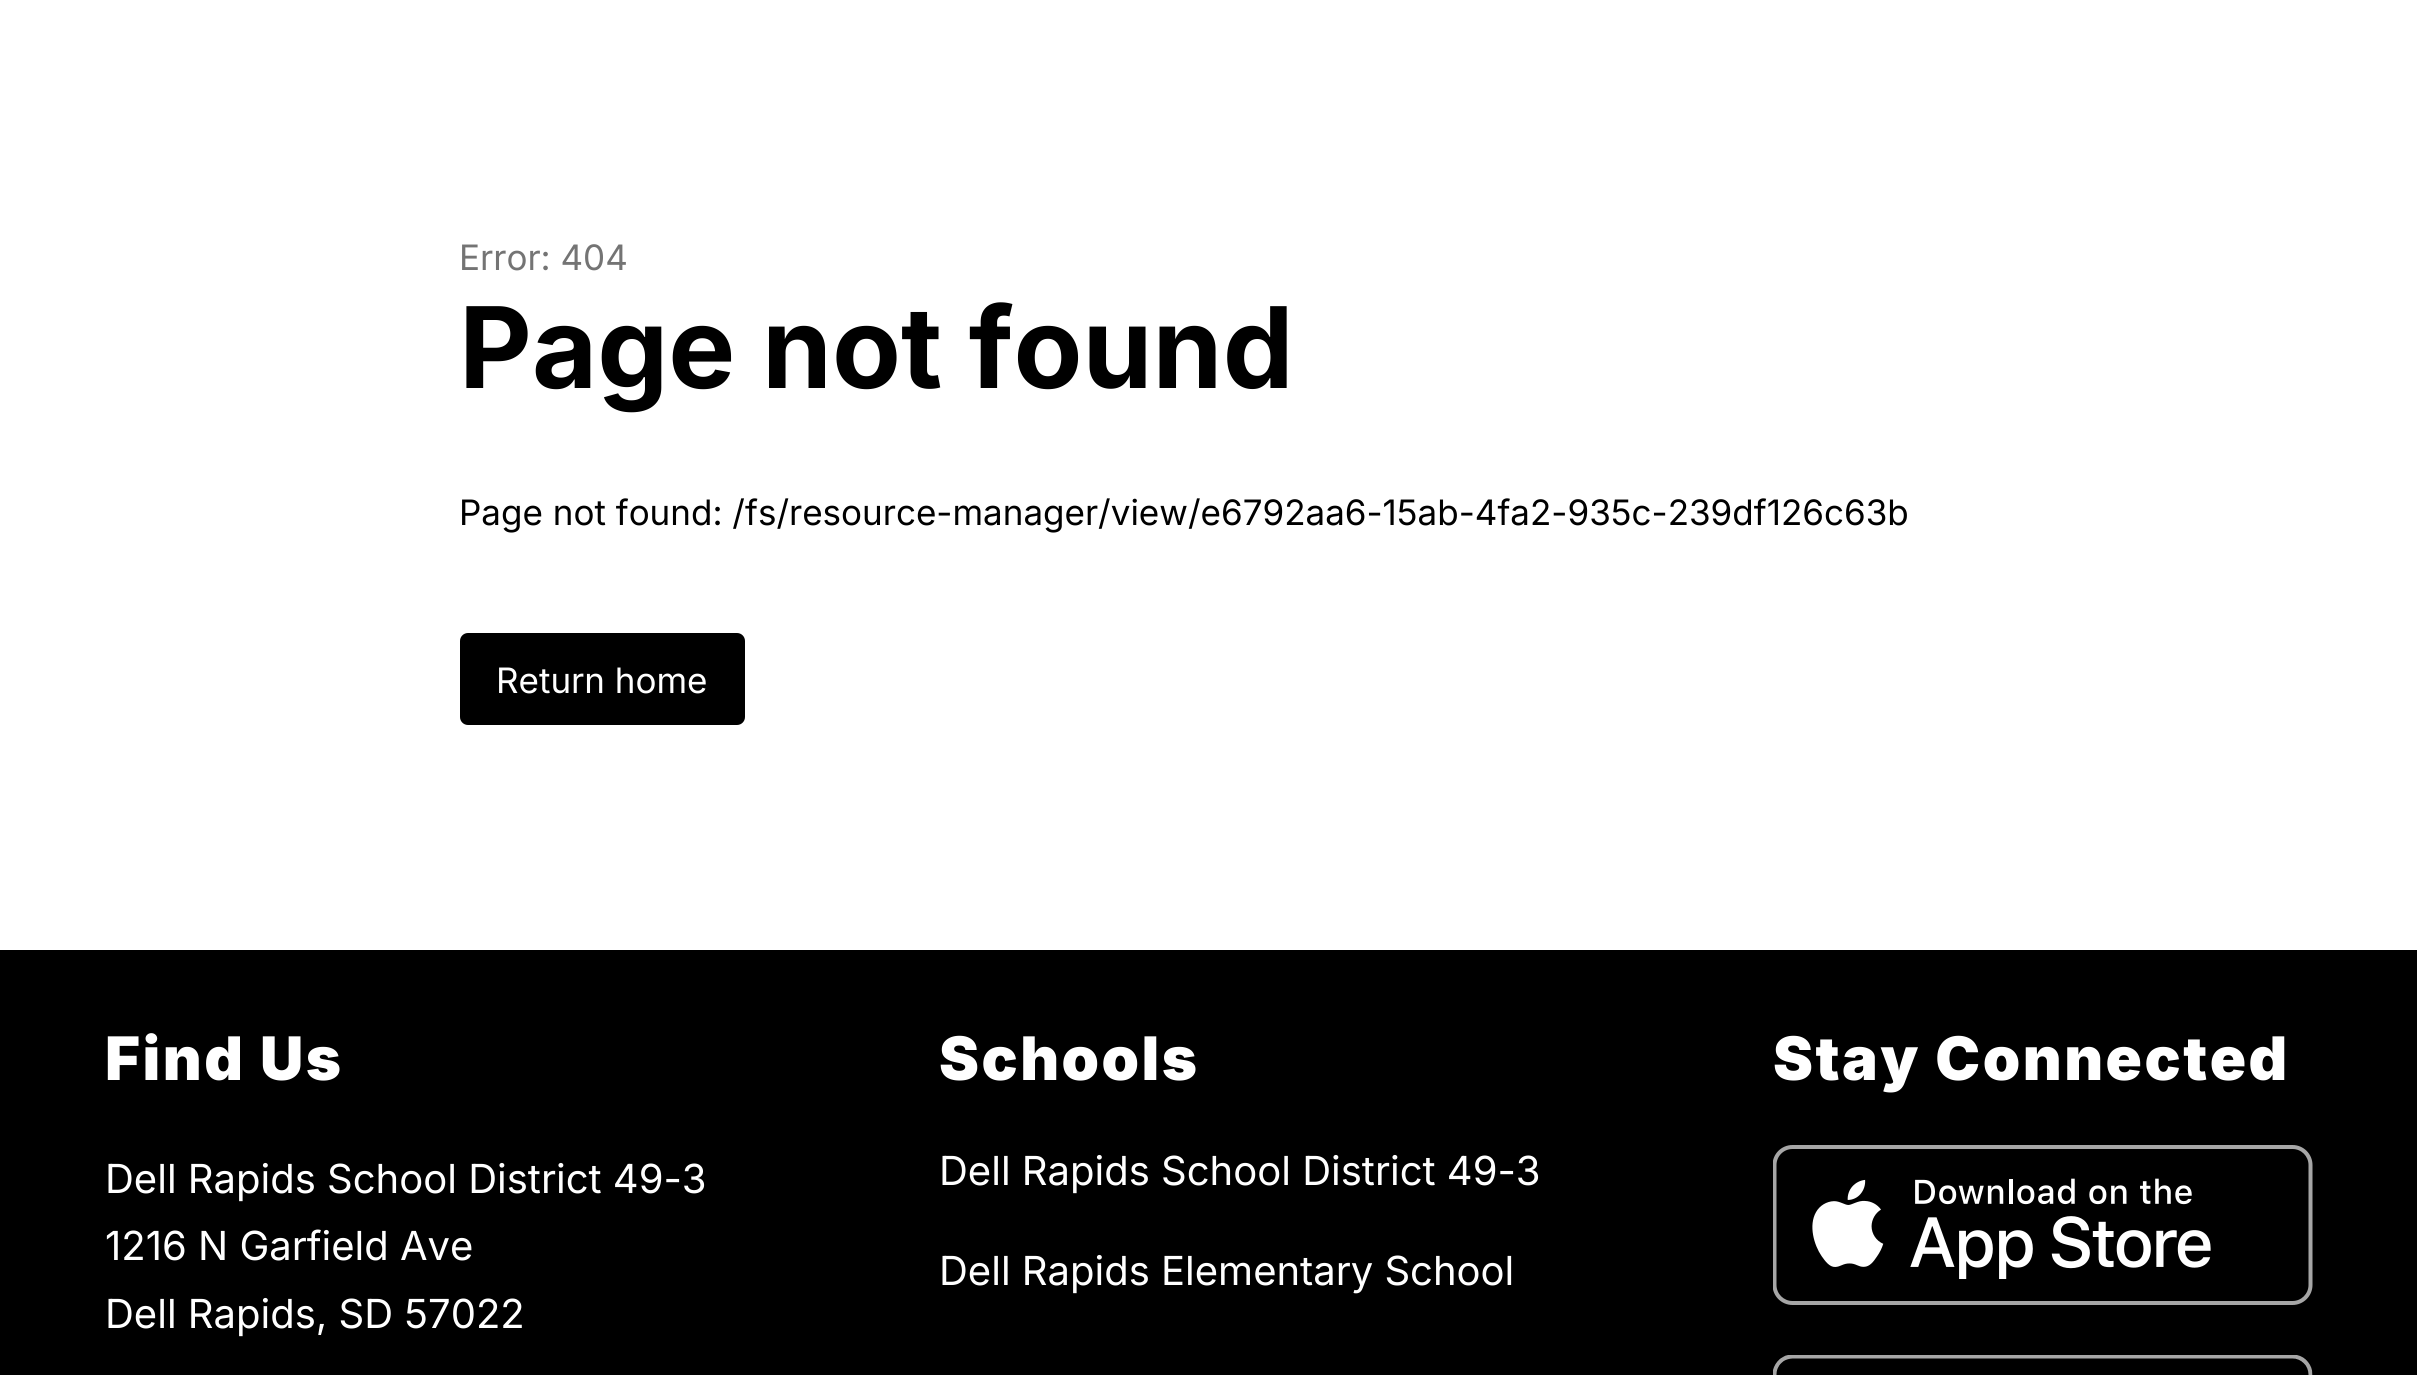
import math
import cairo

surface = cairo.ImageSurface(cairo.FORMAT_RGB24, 2417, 1375)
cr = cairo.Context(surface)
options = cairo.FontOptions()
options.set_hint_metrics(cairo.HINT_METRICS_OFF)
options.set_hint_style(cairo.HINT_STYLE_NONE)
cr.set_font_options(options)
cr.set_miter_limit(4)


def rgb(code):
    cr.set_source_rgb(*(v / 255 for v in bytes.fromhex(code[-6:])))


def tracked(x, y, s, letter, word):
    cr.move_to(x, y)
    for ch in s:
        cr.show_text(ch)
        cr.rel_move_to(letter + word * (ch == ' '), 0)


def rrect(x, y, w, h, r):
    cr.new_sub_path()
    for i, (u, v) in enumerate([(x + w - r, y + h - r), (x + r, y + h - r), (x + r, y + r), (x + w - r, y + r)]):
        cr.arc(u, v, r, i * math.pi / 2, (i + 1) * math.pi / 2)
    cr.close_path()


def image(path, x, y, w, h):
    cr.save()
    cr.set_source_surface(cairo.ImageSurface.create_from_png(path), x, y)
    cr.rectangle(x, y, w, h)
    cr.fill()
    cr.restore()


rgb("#ffffff")
cr.paint()
rgb("#000000")
rrect(460, 633, 285, 92, 8)
cr.fill()
cr.rectangle(0, 950, 2417, 425)
cr.fill()
image("img/1.png", 1773, 1145, 540, 160)
image("img/2.png", 1773, 1355, 540, 20)
cr.select_font_face("Inter")
cr.set_font_size(35)
rgb("#747474")
cr.move_to(459, 270)
cr.show_text("Error: 404")
cr.select_font_face("Inter", cairo.FONT_SLANT_NORMAL, cairo.FONT_WEIGHT_BOLD)
cr.set_font_size(112.5)
rgb("#000000")
cr.move_to(459, 388)
cr.show_text("Page not found")
cr.select_font_face("Inter")
cr.set_font_size(35)
cr.move_to(459, 525)
cr.show_text("Page not found: /fs/resource-manager/view/e6792aa6-15ab-4fa2-935c-239df126c63b")
rgb("#ffffff")
cr.move_to(496, 693)
cr.show_text("Return home")
cr.select_font_face("Inter Black")
cr.set_font_size(60)
tracked(105, 1080, "Find Us", 2.5, 0)
cr.select_font_face("Inter")
cr.set_font_size(40)
for x, y, s in [
    (105, 1193, "Dell Rapids School District 49-3"),
    (105, 1260, "1216 N Garfield Ave"),
    (105, 1328, "Dell Rapids, SD 57022"),
]:
    cr.move_to(x, y)
    cr.show_text(s)
cr.select_font_face("Inter Black")
cr.set_font_size(60)
tracked(939, 1080, "Schools", 2.5, 0)
cr.select_font_face("Inter")
cr.set_font_size(40)
cr.move_to(939, 1185)
cr.show_text("Dell Rapids School District 49-3")
cr.move_to(939, 1285)
cr.show_text("Dell Rapids Elementary School")
cr.select_font_face("Inter Black")
cr.set_font_size(60)
tracked(1773, 1080, "Stay Connected", 2.5, 0)
surface.write_to_png("page.png")
